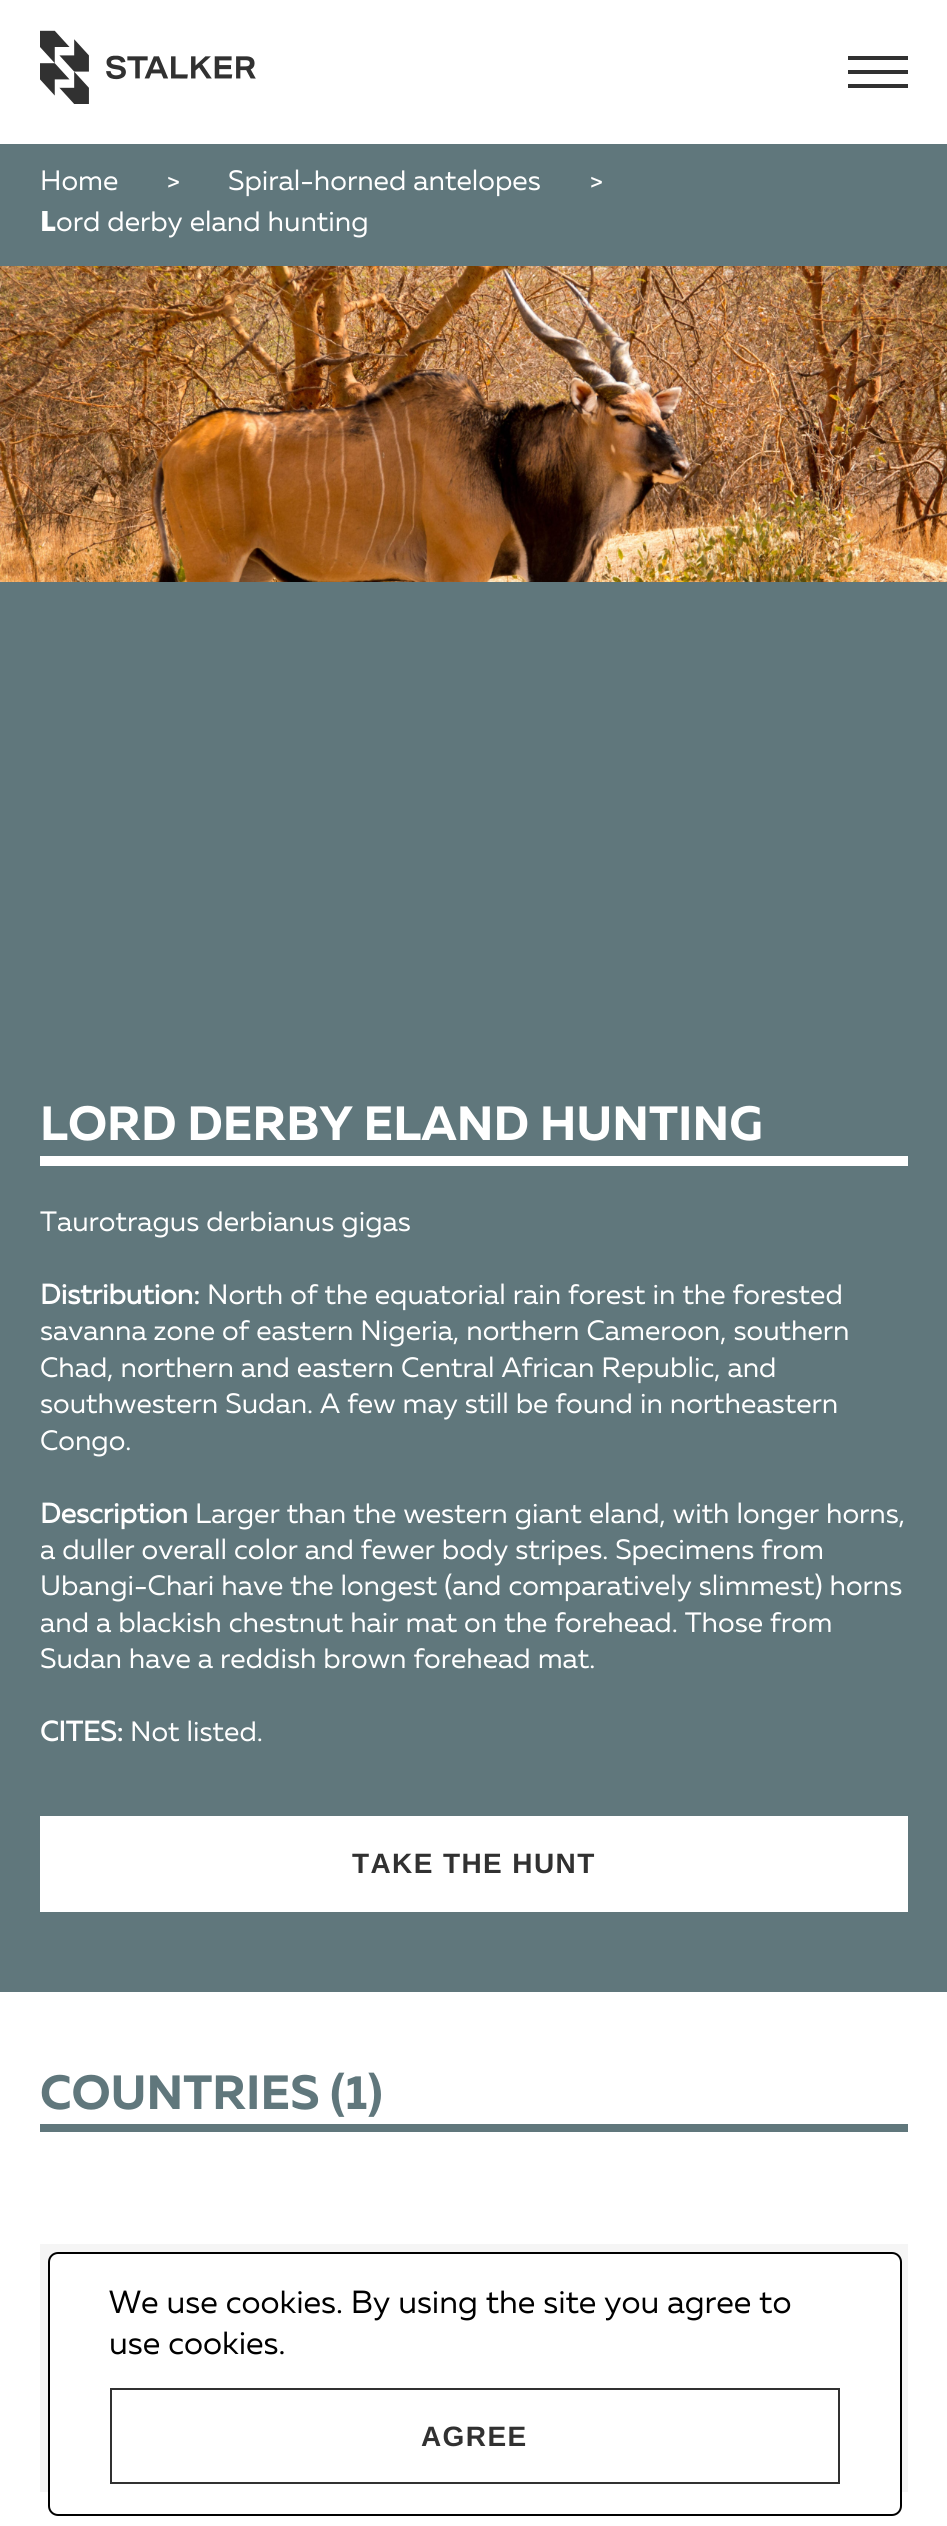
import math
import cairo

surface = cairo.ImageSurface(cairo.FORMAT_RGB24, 947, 2526)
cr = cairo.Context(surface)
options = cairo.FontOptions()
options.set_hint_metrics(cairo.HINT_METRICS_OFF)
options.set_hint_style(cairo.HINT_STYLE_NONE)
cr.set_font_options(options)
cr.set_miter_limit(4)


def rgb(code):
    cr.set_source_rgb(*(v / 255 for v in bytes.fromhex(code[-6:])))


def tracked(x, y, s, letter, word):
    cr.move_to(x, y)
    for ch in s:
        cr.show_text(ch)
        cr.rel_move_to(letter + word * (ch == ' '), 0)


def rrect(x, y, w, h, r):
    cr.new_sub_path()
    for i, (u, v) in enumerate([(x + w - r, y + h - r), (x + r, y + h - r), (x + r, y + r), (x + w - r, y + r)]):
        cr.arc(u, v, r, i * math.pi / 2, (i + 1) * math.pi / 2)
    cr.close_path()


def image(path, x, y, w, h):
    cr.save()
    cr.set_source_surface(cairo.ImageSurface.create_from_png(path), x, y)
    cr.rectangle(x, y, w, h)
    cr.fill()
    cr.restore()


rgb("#ffffff")
cr.paint()
image("img/1.png", 40, 30, 216, 74)
for x, y, w, h, color in [
    (848, 56, 60, 4, "#313131"),
    (848, 70, 60, 4, "#313131"),
    (848, 84, 60, 4, "#313131"),
    (0, 144, 947, 122, "#60777c"),
]:
    rgb(color)
    cr.rectangle(x, y, w, h)
    cr.fill()
image("img/2.png", 0, 266, 947, 316)
for x, y, w, h, color in [
    (0, 582, 947, 1410, "#60777c"),
    (40, 1156, 868, 10, "#ffffff"),
    (40, 1816, 868, 96, "#ffffff"),
    (40, 2124, 868, 8, "#60777c"),
    (40, 2244, 868, 248, "#f5f5f5"),
]:
    rgb(color)
    cr.rectangle(x, y, w, h)
    cr.fill()
rgb("#ffffff")
rrect(49, 2253, 852, 262, 9)
cr.fill_preserve()
rgb("#000000")
cr.stroke()
cr.rectangle(111, 2389, 728, 94)
rgb("#313131")
cr.stroke()
cr.select_font_face("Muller")
cr.set_font_size(28)
rgb("#ffffff")
for x, y, s in [
    (40, 190, "Home"),
    (166, 192, ">"),
    (228, 190, "Spiral-horned antelopes"),
    (589, 192, ">"),
]:
    cr.move_to(x, y)
    cr.show_text(s)
cr.select_font_face("Noto Sans Black")
cr.move_to(40, 231)
cr.show_text("L")
cr.select_font_face("Muller")
cr.move_to(56, 231)
cr.show_text("ord derby eland hunting")
cr.select_font_face("Muller", cairo.FONT_SLANT_NORMAL, cairo.FONT_WEIGHT_BOLD)
cr.set_font_size(48)
cr.move_to(40, 1140)
cr.show_text("LORD DERBY ELAND HUNTING")
cr.select_font_face("Muller")
cr.set_font_size(28)
cr.move_to(40, 1231)
cr.show_text("Taurotragus derbianus gigas")
cr.select_font_face("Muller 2", cairo.FONT_SLANT_NORMAL, cairo.FONT_WEIGHT_BOLD)
cr.move_to(40, 1304)
cr.show_text("Distribution:")
cr.select_font_face("Muller")
for x, y, s in [
    (207, 1304, "North of the equatorial rain forest in the forested"),
    (40, 1340, "savanna zone of eastern Nigeria, northern Cameroon, southern"),
    (40, 1377, "Chad, northern and eastern Central African Republic, and"),
    (40, 1413, "southwestern Sudan. A few may still be found in northeastern"),
    (40, 1450, "Congo."),
]:
    cr.move_to(x, y)
    cr.show_text(s)
cr.select_font_face("Muller 2", cairo.FONT_SLANT_NORMAL, cairo.FONT_WEIGHT_BOLD)
cr.move_to(40, 1523)
cr.show_text("Description")
cr.select_font_face("Muller")
for x, y, s in [
    (195, 1523, "Larger than the western giant eland, with longer horns,"),
    (40, 1559, "a duller overall color and fewer body stripes. Specimens from"),
    (40, 1595, "Ubangi-Chari have the longest (and comparatively slimmest) horns"),
    (40, 1632, "and a blackish chestnut hair mat on the forehead. Those from"),
    (40, 1668, "Sudan have a reddish brown forehead mat."),
]:
    cr.move_to(x, y)
    cr.show_text(s)
cr.select_font_face("Muller 2", cairo.FONT_SLANT_NORMAL, cairo.FONT_WEIGHT_BOLD)
cr.move_to(40, 1741)
cr.show_text("CITES:")
cr.select_font_face("Muller")
cr.move_to(130, 1741)
cr.show_text("Not listed.")
cr.select_font_face("Liberation Sans", cairo.FONT_SLANT_NORMAL, cairo.FONT_WEIGHT_BOLD)
rgb("#313131")
tracked(352, 1873, "TAKE THE HUNT", 1.4, 0)
cr.select_font_face("Muller", cairo.FONT_SLANT_NORMAL, cairo.FONT_WEIGHT_BOLD)
cr.set_font_size(48)
rgb("#60777c")
cr.move_to(40, 2109)
cr.show_text("COUNTRIES (1)")
cr.select_font_face("Muller")
cr.set_font_size(32)
rgb("#000000")
cr.move_to(109, 2313)
cr.show_text("We use cookies. By using the site you agree to")
cr.move_to(109, 2354)
cr.show_text("use cookies.")
cr.select_font_face("Liberation Sans", cairo.FONT_SLANT_NORMAL, cairo.FONT_WEIGHT_BOLD)
cr.set_font_size(28)
rgb("#313131")
tracked(421, 2446, "AGREE", 1.4, 0)
surface.write_to_png("page.png")
